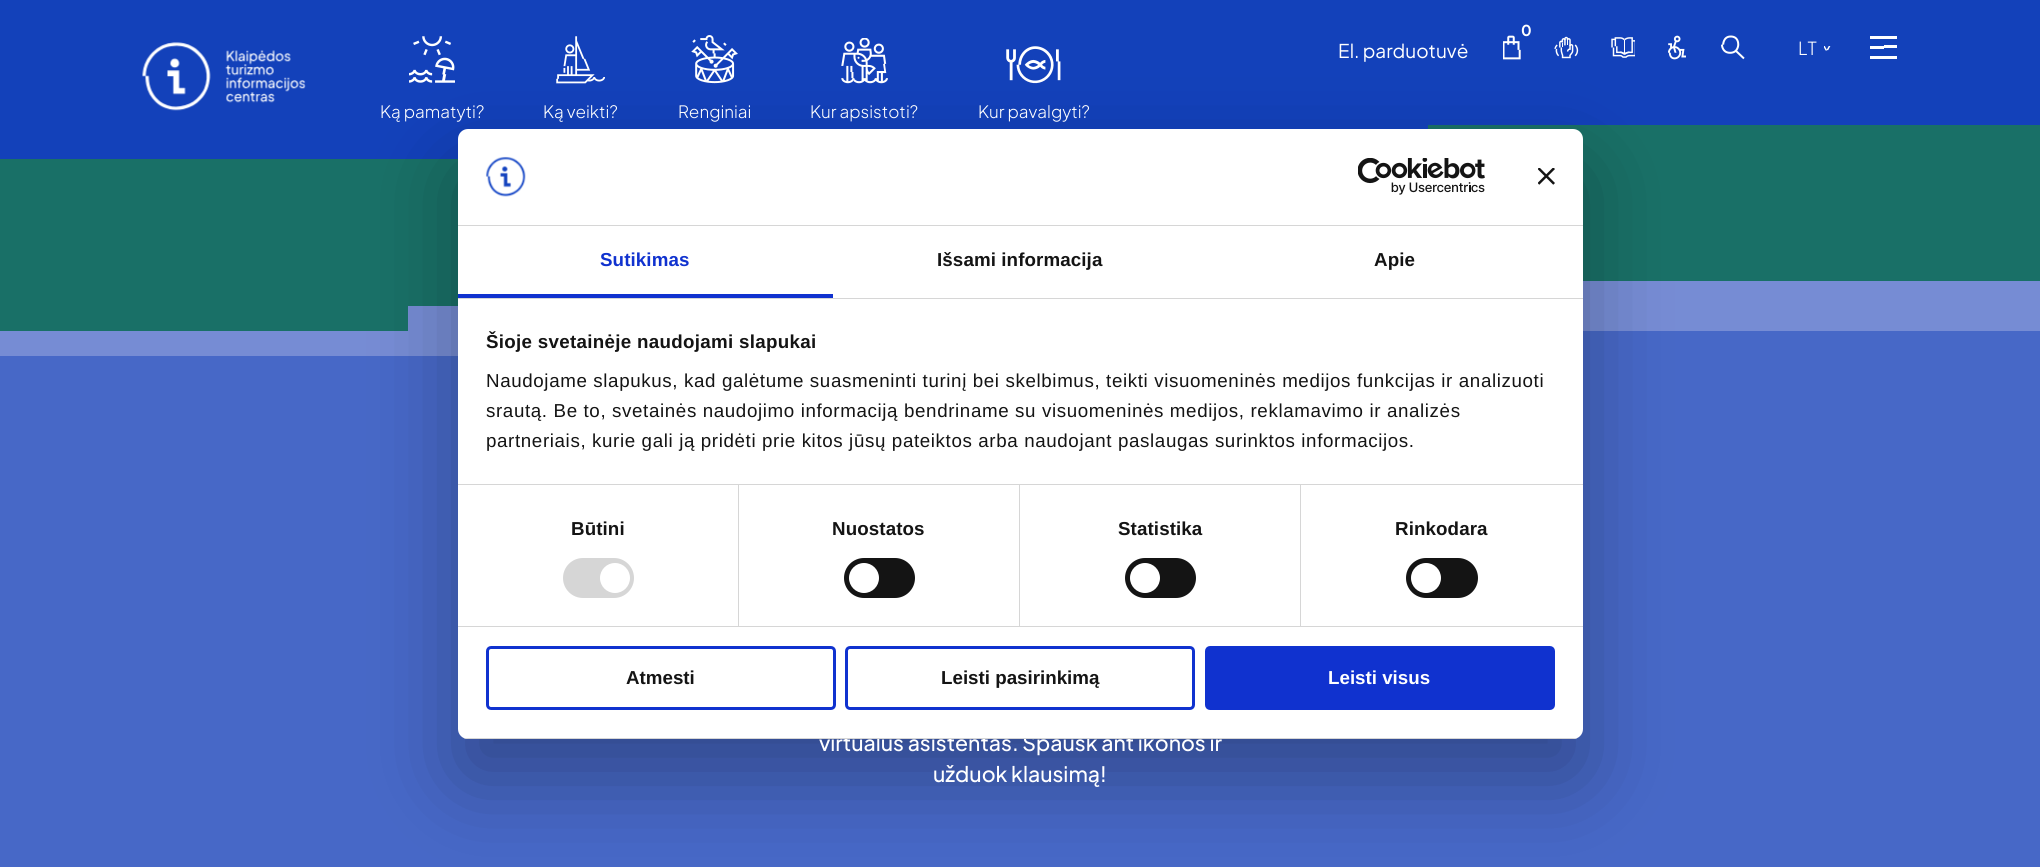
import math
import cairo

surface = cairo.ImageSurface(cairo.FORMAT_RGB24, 2040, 867)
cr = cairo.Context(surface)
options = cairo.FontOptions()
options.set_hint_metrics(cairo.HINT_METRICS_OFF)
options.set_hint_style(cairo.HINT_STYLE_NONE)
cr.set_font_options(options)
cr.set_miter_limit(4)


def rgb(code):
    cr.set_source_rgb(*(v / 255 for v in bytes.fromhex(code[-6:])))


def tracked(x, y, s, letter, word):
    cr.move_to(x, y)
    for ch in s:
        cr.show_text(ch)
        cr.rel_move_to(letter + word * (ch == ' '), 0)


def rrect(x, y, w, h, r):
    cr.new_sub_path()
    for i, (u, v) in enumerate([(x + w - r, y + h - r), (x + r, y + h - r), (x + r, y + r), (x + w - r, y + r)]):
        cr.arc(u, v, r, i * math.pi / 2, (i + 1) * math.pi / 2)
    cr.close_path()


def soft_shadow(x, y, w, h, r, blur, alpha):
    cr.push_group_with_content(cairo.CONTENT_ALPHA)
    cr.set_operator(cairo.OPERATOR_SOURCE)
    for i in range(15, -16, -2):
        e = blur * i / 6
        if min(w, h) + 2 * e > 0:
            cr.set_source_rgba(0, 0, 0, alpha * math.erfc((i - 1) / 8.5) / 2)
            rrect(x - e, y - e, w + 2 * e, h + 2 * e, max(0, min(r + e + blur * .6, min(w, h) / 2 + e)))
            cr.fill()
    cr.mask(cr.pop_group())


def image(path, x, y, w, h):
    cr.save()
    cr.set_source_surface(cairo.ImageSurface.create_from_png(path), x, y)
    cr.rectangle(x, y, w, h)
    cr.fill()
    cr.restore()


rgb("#197067")
cr.paint()
rgb("#1341ba")
cr.rectangle(0, 0, 2040, 125)
cr.fill()
image("img/1.png", 1503, 35, 18, 25)
image("img/2.png", 1554, 36, 25, 23)
image("img/3.png", 1611, 37, 24, 21)
image("img/4.png", 1668, 35, 18, 25)
image("img/5.png", 1721, 35, 24, 25)
image("img/6.png", 1824, 46, 7, 5)
for x, y, w, h, color in [
    (1870, 36, 27, 3, "#ffffff"),
    (1870, 46, 14, 3, "#ffffff"),
    (1884, 45, 13, 3, "#ffffff"),
    (1870, 56, 27, 3, "#ffffff"),
]:
    rgb(color)
    cr.rectangle(x, y, w, h)
    cr.fill()
image("img/7.png", 142, 42, 164, 69)
image("img/8.png", 409, 36, 46, 47)
image("img/9.png", 556, 36, 49, 48)
image("img/10.png", 691, 35, 47, 49)
image("img/11.png", 841, 38, 47, 46)
image("img/12.png", 1006, 46, 55, 38)
for x, y, w, h, color in [
    (0, 125, 1428, 34, "#1341ba"),
    (0, 331, 2040, 536, "#4768c7"),
    (1583, 281, 457, 25, "#768cd4"),
    (408, 306, 1632, 25, "#768cd4"),
    (0, 331, 458, 25, "#768cd4"),
]:
    rgb(color)
    cr.rectangle(x, y, w, h)
    cr.fill()
rgb("#000000")
soft_shadow(458, 169, 1125, 610, 10, 42.5, 0.3)
rgb("#ffffff")
rrect(458, 129, 1125, 610, 10)
cr.fill()
rgb("#d6d6d6")
cr.rectangle(458, 225, 1125, 1)
cr.fill()
image("img/13.png", 485, 156, 41, 41)
image("img/14.png", 1358, 158, 127, 37)
image("img/15.png", 1538, 168, 17, 17)
for x, y, w, h, color in [
    (458, 298, 1125, 1, "#d6d6d6"),
    (458, 294, 375, 4, "#1032cf"),
    (458, 484, 1125, 1, "#d6d6d6"),
    (458, 626, 1125, 1, "#d6d6d6"),
    (738, 485, 1, 141, "#d6d6d6"),
]:
    rgb(color)
    cr.rectangle(x, y, w, h)
    cr.fill()
rrect(563, 558, 71, 40, 20)
cr.fill()
rgb("#ffffff")
cr.arc(615, 578, 15, 0, 2 * math.pi)
cr.fill()
rgb("#d6d6d6")
cr.rectangle(1019, 485, 1, 141)
cr.fill()
rgb("#141414")
rrect(844, 558, 71, 40, 20)
cr.fill()
rgb("#ffffff")
cr.arc(864, 578, 15, 0, 2 * math.pi)
cr.fill()
rgb("#d6d6d6")
cr.rectangle(1300, 485, 1, 141)
cr.fill()
rgb("#141414")
rrect(1125, 558, 71, 40, 20)
cr.fill()
rgb("#ffffff")
cr.arc(1145, 578, 15, 0, 2 * math.pi)
cr.fill()
rgb("#141414")
rrect(1406, 558, 72, 40, 20)
cr.fill()
rgb("#ffffff")
cr.arc(1426, 578, 15, 0, 2 * math.pi)
cr.fill()
rrect(487.5, 647.5, 347, 61, 3.5)
rgb("#1032cf")
cr.set_line_width(3)
cr.stroke()
rrect(846.5, 647.5, 347, 61, 3.5)
cr.stroke()
rrect(1206.5, 647.5, 347, 61, 3.5)
cr.fill_preserve()
cr.stroke()
cr.select_font_face("Plus Jakarta Sans", cairo.FONT_SLANT_NORMAL, cairo.FONT_WEIGHT_BOLD)
cr.set_font_size(15)
rgb("#ffffff")
cr.move_to(1521, 36)
cr.show_text("0")
cr.select_font_face("Plus Jakarta Sans")
cr.set_font_size(19)
cr.move_to(1338, 58)
cr.show_text("El. parduotuvė")
cr.select_font_face("Plus Jakarta Sans Light")
cr.set_font_size(18)
cr.move_to(1798, 55)
cr.show_text("LT")
cr.set_font_size(17)
for x, y, s in [
    (380, 118, "Ką pamatyti?"),
    (543, 118, "Ką veikti?"),
    (678, 118, "Renginiai"),
    (810, 118, "Kur apsistoti?"),
    (978, 118, "Kur pavalgyti?"),
]:
    cr.move_to(x, y)
    cr.show_text(s)
cr.select_font_face("Liberation Sans", cairo.FONT_SLANT_NORMAL, cairo.FONT_WEIGHT_BOLD)
cr.set_font_size(18.75)
rgb("#1032cf")
tracked(600, 266, "Sutikimas", 0.1, 0)
rgb("#141414")
tracked(937, 266, "Išsami informacija", 0.1, 0)
tracked(1374, 266, "Apie", 0.1, 0)
tracked(486, 348, "Šioje svetainėje naudojami slapukai", 0.3, 0)
cr.select_font_face("Liberation Sans")
for x, y, s in [
    (486, 387, "Naudojame slapukus, kad galėtume suasmeninti turinį bei skelbimus, teikti visuomeninės medijos funkcijas ir analizuoti"),
    (486, 417, "srautą. Be to, svetainės naudojimo informaciją bendriname su visuomeninės medijos, reklamavimo ir analizės"),
    (486, 447, "partneriais, kurie gali ją pridėti prie kitos jūsų pateiktos arba naudojant paslaugas surinktos informacijos."),
]:
    tracked(x, y, s, 0.62, 0)
cr.select_font_face("Liberation Sans", cairo.FONT_SLANT_NORMAL, cairo.FONT_WEIGHT_BOLD)
for x, y, s in [
    (571, 535, "Būtini"),
    (832, 535, "Nuostatos"),
    (1118, 535, "Statistika"),
    (1395, 535, "Rinkodara"),
]:
    tracked(x, y, s, 0.1, 0)
cr.move_to(626, 684)
cr.show_text("Atmesti")
cr.move_to(941, 684)
cr.show_text("Leisti pasirinkimą")
rgb("#ffffff")
cr.move_to(1328, 684)
cr.show_text("Leisti visus")
cr.select_font_face("Plus Jakarta Sans Medium")
cr.set_font_size(21.25)
cr.move_to(819, 751)
cr.show_text("virtualus asistentas. Spausk ant ikonos ir")
cr.save()
rrect(458, 129, 1125, 610, 10)
cr.clip()
rgb("#d6d6d6")
cr.rectangle(458, 738, 1125, 1)
cr.fill()
cr.restore()
cr.move_to(933, 782)
cr.show_text("užduok klausimą!")
surface.write_to_png("page.png")
